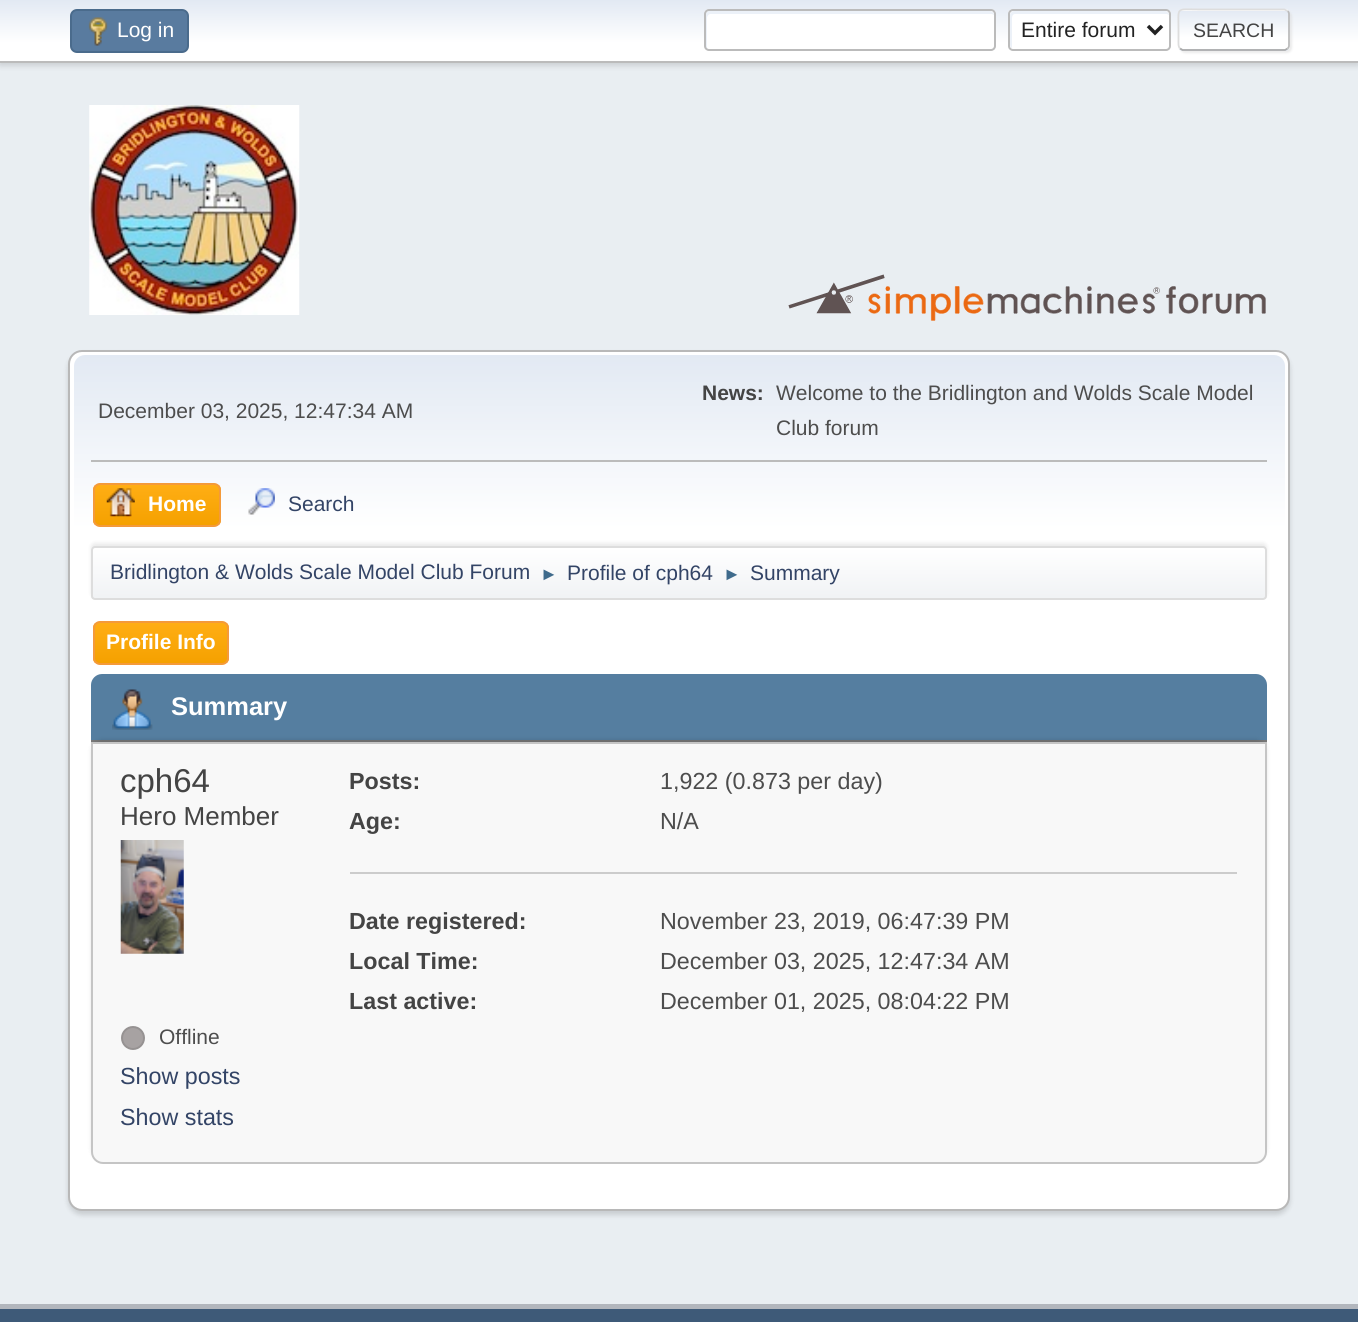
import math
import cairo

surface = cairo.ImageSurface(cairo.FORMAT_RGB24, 1358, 1322)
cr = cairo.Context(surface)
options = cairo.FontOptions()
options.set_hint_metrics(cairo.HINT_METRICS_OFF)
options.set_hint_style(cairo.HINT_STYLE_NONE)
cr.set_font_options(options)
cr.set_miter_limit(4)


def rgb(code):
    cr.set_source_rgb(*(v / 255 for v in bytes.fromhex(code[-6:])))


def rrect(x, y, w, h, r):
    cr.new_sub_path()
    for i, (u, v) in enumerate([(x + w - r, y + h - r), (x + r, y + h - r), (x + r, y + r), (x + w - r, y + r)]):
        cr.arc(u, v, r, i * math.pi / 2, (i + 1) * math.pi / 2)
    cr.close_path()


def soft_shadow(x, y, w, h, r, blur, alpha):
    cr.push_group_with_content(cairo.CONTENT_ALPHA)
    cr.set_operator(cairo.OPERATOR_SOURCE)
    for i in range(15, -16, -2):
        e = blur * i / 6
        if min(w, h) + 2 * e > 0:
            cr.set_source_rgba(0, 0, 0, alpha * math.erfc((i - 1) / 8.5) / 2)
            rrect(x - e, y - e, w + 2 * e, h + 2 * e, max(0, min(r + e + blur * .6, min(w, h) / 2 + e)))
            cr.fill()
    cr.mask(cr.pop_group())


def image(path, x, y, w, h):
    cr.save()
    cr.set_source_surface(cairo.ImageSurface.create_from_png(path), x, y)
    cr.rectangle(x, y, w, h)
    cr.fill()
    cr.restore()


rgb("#e9eef2")
cr.paint()
rgb("#000000")
soft_shadow(0, 2, 1358, 63, 0, 3.5, 0.16)
gradient = cairo.LinearGradient(679, 0, 679, 61)
gradient.add_color_stop_rgba(0, 0.886, 0.914, 0.953, 1)
gradient.add_color_stop_rgba(0.7, 1, 1, 1, 1)
cr.set_source(gradient)
cr.rectangle(0, 0, 1358, 61)
cr.fill()
rgb("#bbbbbb")
cr.rectangle(0, 61, 1358, 2)
cr.fill()
rgb("#597b9f")
rrect(71, 10, 117, 42, 6)
cr.fill_preserve()
rgb("#4a6b8c")
cr.stroke()
image("img/1.png", 88, 17, 20, 29)
rgb("#ffffff")
rrect(704, 9, 292, 42, 5)
cr.fill()
rgb("#ecf1f8")
cr.new_path()
cr.move_to(710, 14)
cr.line_to(992, 14)
cr.line_to(994, 15)
cr.curve_to(994, 13, 992, 11, 990, 11)
cr.line_to(709, 11)
cr.curve_to(707, 11, 705, 13, 705, 15)
cr.line_to(705, 45)
cr.curve_to(705, 46, 706, 48, 707, 48)
cr.line_to(707, 18)
cr.curve_to(707, 16, 709, 14, 710, 14)
cr.close_path()
cr.fill()
rrect(705, 10, 290, 40, 4)
rgb("#bbbbbb")
cr.stroke()
rgb("#ffffff")
rrect(1008, 9, 163, 42, 5)
cr.fill()
rgb("#ecf1f8")
cr.new_path()
cr.move_to(1015, 14)
cr.line_to(1167, 14)
cr.line_to(1169, 15)
cr.curve_to(1169, 13, 1167, 11, 1165, 11)
cr.line_to(1014, 11)
cr.curve_to(1012, 11, 1010, 13, 1010, 15)
cr.line_to(1010, 45)
cr.curve_to(1010, 46, 1011, 48, 1012, 48)
cr.line_to(1012, 18)
cr.curve_to(1012, 16, 1013, 14, 1015, 14)
cr.close_path()
cr.fill()
rrect(1009, 10, 161, 40, 4)
rgb("#bbbbbb")
cr.stroke()
cr.new_path()
cr.move_to(1148, 26)
cr.line_to(1155, 33)
cr.line_to(1162, 26)
rgb("#222222")
cr.set_line_width(3.5)
cr.stroke()
rgb("#dddddd")
soft_shadow(1180, 11, 112, 42, 5, 1, 0.57)
cr.save()
rrect(1178, 9, 112, 42, 5)
cr.clip()
gradient = cairo.LinearGradient(1234, -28, 1234, 11)
gradient.add_color_stop_rgba(0, 0.886, 0.914, 0.953, 1)
gradient.add_color_stop_rgba(0.7, 1, 1, 1, 1)
cr.set_source(gradient)
cr.rectangle(1178, 9, 112, 2)
cr.fill()
gradient = cairo.LinearGradient(1234, 10, 1234, 49)
gradient.add_color_stop_rgba(0, 0.886, 0.914, 0.953, 1)
gradient.add_color_stop_rgba(0.7, 1, 1, 1, 1)
cr.set_source(gradient)
cr.rectangle(1178, 11, 112, 38)
cr.fill()
gradient = cairo.LinearGradient(1234, 49, 1234, 88)
gradient.add_color_stop_rgba(0, 0.886, 0.914, 0.953, 1)
gradient.add_color_stop_rgba(0.7, 1, 1, 1, 1)
cr.set_source(gradient)
cr.rectangle(1178, 49, 112, 2)
cr.fill()
cr.restore()
cr.new_path()
cr.move_to(1287.5, 11)
cr.curve_to(1288.5, 11.5, 1289, 13, 1289, 14)
cr.line_to(1289, 45.5)
cr.curve_to(1289, 46.5, 1288.5, 48, 1287.5, 48.5)
rgb("#bbbbbb")
cr.set_line_width(1.8)
cr.stroke()
cr.new_path()
cr.move_to(1287.5, 48.5)
cr.line_to(1285, 50)
cr.line_to(1182.5, 50)
cr.line_to(1180, 48.5)
rgb("#aaaaaa")
cr.stroke()
cr.new_path()
cr.move_to(1180, 48.5)
cr.curve_to(1178, 46.5, 1178.5, 42.5, 1178.5, 40)
cr.line_to(1178.5, 30)
cr.curve_to(1178.5, 6, 1175, 9.5, 1200, 9.5)
cr.line_to(1284.5, 9.5)
cr.line_to(1287.5, 11)
rgb("#dddddd")
cr.stroke()
image("img/2.png", 89, 105, 211, 210)
image("img/3.png", 788, 274, 478, 47)
rgb("#000000")
soft_shadow(68, 354, 1222, 861, 14, 2.5, 0.14)
rgb("#ffffff")
rrect(69, 351, 1220, 859, 13)
cr.fill_preserve()
rgb("#b8b8b8")
cr.set_line_width(2)
cr.stroke()
gradient = cairo.LinearGradient(679, 355, 679, 604)
gradient.add_color_stop_rgba(0, 0.886, 0.914, 0.953, 1)
gradient.add_color_stop_rgba(0.7, 1, 1, 1, 1)
cr.set_source(gradient)
cr.new_path()
cr.move_to(85, 355)
cr.line_to(1274, 355)
cr.curve_to(1280, 355, 1285, 360, 1285, 366)
cr.line_to(1285, 604)
cr.line_to(74, 604)
cr.line_to(74, 366)
cr.curve_to(74, 360, 79, 355, 85, 355)
cr.close_path()
cr.fill()
rgb("#bbbbbb")
cr.rectangle(91, 460, 1176, 2)
cr.fill()
cr.save()
rrect(93, 483, 128, 44, 7)
cr.clip()
gradient = cairo.LinearGradient(157, 485, 157, 525)
gradient.add_color_stop_rgba(0, 1, 0.682, 0.078, 1)
gradient.add_color_stop_rgba(1, 0.961, 0.631, 0, 1)
cr.set_source(gradient)
cr.rectangle(93, 485, 128, 40)
cr.fill()
cr.restore()
rrect(94, 484, 126, 42, 6)
rgb("#f49a3a")
cr.stroke()
image("img/4.png", 106, 488, 29, 29)
image("img/5.png", 248, 488, 27, 27)
rgb("#000000")
soft_shadow(91, 543, 1176, 54, 4, 2, 0.08)
cr.save()
rrect(91, 546, 1176, 54, 4)
cr.clip()
gradient = cairo.LinearGradient(679, 548, 679, 599)
gradient.add_color_stop_rgba(0, 1, 1, 1, 1)
gradient.add_color_stop_rgba(0.95, 0.945, 0.953, 0.961, 1)
cr.set_source(gradient)
cr.rectangle(91, 548, 1176, 51)
cr.fill()
cr.restore()
rrect(92, 547, 1174, 52, 3)
rgb("#dddddd")
cr.stroke()
cr.save()
rrect(93, 621, 136, 44, 7)
cr.clip()
gradient = cairo.LinearGradient(161, 623, 161, 663)
gradient.add_color_stop_rgba(0, 1, 0.682, 0.078, 1)
gradient.add_color_stop_rgba(1, 0.961, 0.631, 0, 1)
cr.set_source(gradient)
cr.rectangle(93, 623, 136, 40)
cr.fill()
cr.restore()
rrect(94, 622, 134, 42, 6)
rgb("#f49a3a")
cr.stroke()
rgb("#557ea0")
cr.new_path()
cr.move_to(102, 674)
cr.line_to(1256, 674)
cr.curve_to(1262, 674, 1267, 679, 1267, 685)
cr.line_to(1267, 742)
cr.line_to(91, 742)
cr.line_to(91, 685)
cr.curve_to(91, 679, 96, 674, 102, 674)
cr.close_path()
cr.fill()
rgb("#777777")
cr.rectangle(91, 740, 1176, 2)
cr.fill()
image("img/6.png", 112, 689, 41, 41)
rgb("#000000")
soft_shadow(91, 739, 1176, 421, 12, 2, 0.1)
rgb("#f8f8f8")
cr.new_path()
cr.move_to(92, 743)
cr.line_to(1266, 743)
cr.line_to(1266, 1152)
cr.curve_to(1266, 1158, 1261, 1163, 1255, 1163)
cr.line_to(103, 1163)
cr.curve_to(97, 1163, 92, 1158, 92, 1152)
cr.close_path()
cr.fill_preserve()
rgb("#c5c5c5")
cr.stroke()
image("img/7.png", 120, 840, 64, 114)
rgb("#a7a2a2")
cr.arc(133, 1038, 11, 0, 2 * math.pi)
cr.fill_preserve()
rgb("#969292")
cr.stroke()
for x, y, w, h, color in [
    (350, 872, 887, 2, "#cccccc"),
    (0, 1309, 1358, 13, "#3e5a78"),
    (0, 1304, 1358, 5, "#b2b6bd"),
]:
    rgb(color)
    cr.rectangle(x, y, w, h)
    cr.fill()
cr.select_font_face("Liberation Sans")
cr.set_font_size(21)
rgb("#ffffff")
cr.move_to(117, 37)
cr.show_text("Log in")
rgb("#222222")
cr.move_to(1021, 37)
cr.show_text("Entire forum")
cr.set_font_size(19.5)
rgb("#444444")
cr.move_to(1193, 37)
cr.show_text("SEARCH")
cr.set_font_size(21)
rgb("#4d4d4d")
cr.move_to(98, 418)
cr.show_text("December 03, 2025, 12:47:34 AM")
cr.select_font_face("Liberation Sans", cairo.FONT_SLANT_NORMAL, cairo.FONT_WEIGHT_BOLD)
rgb("#444444")
cr.move_to(702, 400)
cr.show_text("News:")
cr.select_font_face("Liberation Sans")
rgb("#4d4d4d")
cr.move_to(776, 400)
cr.show_text("Welcome to the Bridlington and Wolds Scale Model")
cr.move_to(776, 435)
cr.show_text("Club forum")
cr.select_font_face("Liberation Sans", cairo.FONT_SLANT_NORMAL, cairo.FONT_WEIGHT_BOLD)
rgb("#ffffff")
cr.move_to(148, 511)
cr.show_text("Home")
cr.select_font_face("Liberation Sans")
rgb("#334466")
cr.move_to(288, 511)
cr.show_text("Search")
cr.move_to(110, 579)
cr.show_text("Bridlington & Wolds Scale Model Club Forum")
cr.set_font_size(18)
rgb("#3f6b8c")
cr.move_to(540, 580)
cr.show_text("►")
cr.set_font_size(21)
rgb("#334466")
cr.move_to(567, 580)
cr.show_text("Profile of cph64")
cr.set_font_size(18)
rgb("#3f6b8c")
cr.move_to(723, 580)
cr.show_text("►")
cr.set_font_size(21)
rgb("#334466")
cr.move_to(750, 580)
cr.show_text("Summary")
cr.select_font_face("Liberation Sans", cairo.FONT_SLANT_NORMAL, cairo.FONT_WEIGHT_BOLD)
rgb("#ffffff")
cr.move_to(106, 649)
cr.show_text("Profile Info")
cr.set_font_size(25.5)
cr.move_to(171, 715)
cr.show_text("Summary")
cr.select_font_face("Liberation Sans")
cr.set_font_size(33)
rgb("#444444")
cr.move_to(120, 792)
cr.show_text("cph64")
cr.set_font_size(26)
cr.move_to(120, 825)
cr.show_text("Hero Member")
cr.set_font_size(21)
rgb("#4d4d4d")
cr.move_to(159, 1044)
cr.show_text("Offline")
cr.set_font_size(23.3)
rgb("#334466")
cr.move_to(120, 1084)
cr.show_text("Show posts")
cr.move_to(120, 1125)
cr.show_text("Show stats")
cr.select_font_face("Liberation Sans", cairo.FONT_SLANT_NORMAL, cairo.FONT_WEIGHT_BOLD)
rgb("#444444")
cr.move_to(349, 789)
cr.show_text("Posts:")
cr.select_font_face("Liberation Sans")
rgb("#4d4d4d")
cr.move_to(660, 789)
cr.show_text("1,922 (0.873 per day)")
cr.select_font_face("Liberation Sans", cairo.FONT_SLANT_NORMAL, cairo.FONT_WEIGHT_BOLD)
rgb("#444444")
cr.move_to(349, 829)
cr.show_text("Age:")
cr.select_font_face("Liberation Sans")
rgb("#4d4d4d")
cr.move_to(660, 829)
cr.show_text("N/A")
cr.select_font_face("Liberation Sans", cairo.FONT_SLANT_NORMAL, cairo.FONT_WEIGHT_BOLD)
rgb("#444444")
cr.move_to(349, 929)
cr.show_text("Date registered:")
cr.select_font_face("Liberation Sans")
rgb("#4d4d4d")
cr.move_to(660, 929)
cr.show_text("November 23, 2019, 06:47:39 PM")
cr.select_font_face("Liberation Sans", cairo.FONT_SLANT_NORMAL, cairo.FONT_WEIGHT_BOLD)
rgb("#444444")
cr.move_to(349, 969)
cr.show_text("Local Time:")
cr.select_font_face("Liberation Sans")
rgb("#4d4d4d")
cr.move_to(660, 969)
cr.show_text("December 03, 2025, 12:47:34 AM")
cr.select_font_face("Liberation Sans", cairo.FONT_SLANT_NORMAL, cairo.FONT_WEIGHT_BOLD)
rgb("#444444")
cr.move_to(349, 1009)
cr.show_text("Last active:")
cr.select_font_face("Liberation Sans")
rgb("#4d4d4d")
cr.move_to(660, 1009)
cr.show_text("December 01, 2025, 08:04:22 PM")
surface.write_to_png("page.png")
